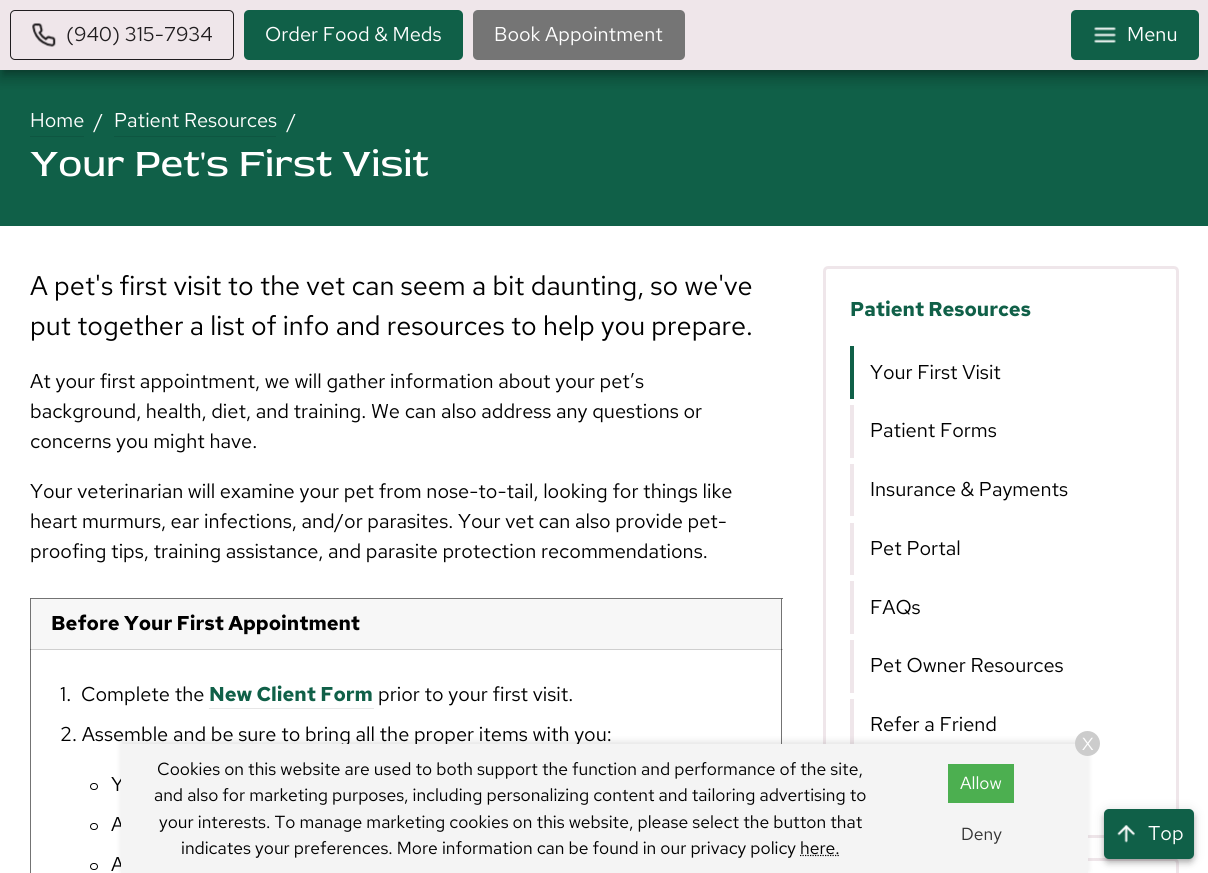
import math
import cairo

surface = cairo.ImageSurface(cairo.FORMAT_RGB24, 1208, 873)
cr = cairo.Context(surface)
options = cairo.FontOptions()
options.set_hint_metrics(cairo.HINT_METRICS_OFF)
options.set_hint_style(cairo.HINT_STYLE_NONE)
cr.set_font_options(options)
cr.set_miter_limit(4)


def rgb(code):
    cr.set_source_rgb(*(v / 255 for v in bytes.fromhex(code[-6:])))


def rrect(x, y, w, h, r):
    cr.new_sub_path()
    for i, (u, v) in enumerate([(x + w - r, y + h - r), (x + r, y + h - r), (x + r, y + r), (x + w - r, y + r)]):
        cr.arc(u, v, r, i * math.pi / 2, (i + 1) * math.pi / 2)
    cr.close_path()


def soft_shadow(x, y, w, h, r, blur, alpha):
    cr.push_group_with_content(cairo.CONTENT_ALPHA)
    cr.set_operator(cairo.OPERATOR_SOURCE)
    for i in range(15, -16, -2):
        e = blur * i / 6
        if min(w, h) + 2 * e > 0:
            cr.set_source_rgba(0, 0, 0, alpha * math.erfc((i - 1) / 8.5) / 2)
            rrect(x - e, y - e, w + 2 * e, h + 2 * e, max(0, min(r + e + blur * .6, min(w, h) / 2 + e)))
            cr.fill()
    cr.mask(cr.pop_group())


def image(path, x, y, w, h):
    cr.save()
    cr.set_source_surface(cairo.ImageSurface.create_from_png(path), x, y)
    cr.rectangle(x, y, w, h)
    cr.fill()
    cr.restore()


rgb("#ffffff")
cr.paint()
rgb("#cfcfcf")
cr.rectangle(30, 649, 753, 1)
cr.fill()
rgb("#106048")
cr.rectangle(0, 70, 1208, 156)
cr.fill()
rgb("#000000")
soft_shadow(-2, 1, 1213, 75, 0, 9, 0.12)
soft_shadow(-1, 9, 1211, 72, 0, 6, 0.14)
soft_shadow(4, 10, 1201, 63, 0, 3, 0.2)
rgb("#efe6ea")
cr.rectangle(0, 0, 1208, 70)
cr.fill()
rrect(10.5, 10.5, 223, 49, 4.5)
rgb("#201d1f")
cr.set_line_width(1)
cr.stroke()
image("img/1.png", 32, 23, 24, 24)
rgb("#106048")
rrect(244, 10, 219, 50, 5)
cr.fill()
rgb("#757575")
rrect(473, 10, 212, 50, 5)
cr.fill()
rgb("#106048")
rrect(1071, 10, 128, 50, 5)
cr.fill()
image("img/2.png", 1094, 27, 22, 16)
for x, y, w, h, color in [
    (30, 136, 54, 1, "#0e5641"),
    (114, 136, 162, 1, "#0e5641"),
    (781, 598, 1, 146, "#737373"),
    (781, 649, 1, 1, "#555555"),
    (30, 598, 1, 275, "#737373"),
    (30, 649, 1, 1, "#555555"),
    (31, 599, 750, 50, "#f7f7f7"),
    (30, 598, 753, 1, "#737373"),
    (30, 598, 1, 1, "#686868"),
    (781, 598, 1, 1, "#686868"),
    (209, 708, 165, 1, "#e6e6e6"),
]:
    rgb(color)
    cr.rectangle(x, y, w, h)
    cr.fill()
rrect(90.5, 783.5, 7, 6, 3)
rgb("#000000")
cr.stroke()
rrect(90.5, 823.5, 7, 6, 3)
cr.stroke()
rrect(90.5, 863.5, 7, 6, 3)
cr.stroke()
rrect(824.5, 267.5, 353, 569, 3.5)
rgb("#efe6ea")
cr.set_line_width(3)
cr.stroke()
for x, y, w, h, color in [
    (850, 346, 4, 53, "#106048"),
    (850, 405, 4, 53, "#efe6ea"),
    (850, 464, 4, 52, "#efe6ea"),
    (850, 523, 4, 52, "#efe6ea"),
    (850, 581, 4, 53, "#efe6ea"),
    (850, 640, 4, 53, "#efe6ea"),
    (850, 699, 4, 52, "#efe6ea"),
]:
    rgb(color)
    cr.rectangle(x, y, w, h)
    cr.fill()
rrect(824.5, 859.5, 353, 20, 3.5)
cr.stroke()
rgb("#000000")
soft_shadow(121, 741, 967, 130, 0, 3, 0.1)
soft_shadow(1104, 810, 90, 50, 5, 6, 0.12)
soft_shadow(1104, 814, 90, 50, 5, 3, 0.14)
soft_shadow(1105, 813, 88, 47, 4, 2.5, 0.2)
rgb("#106048")
rrect(1104, 809, 90, 50, 5)
cr.fill()
image("img/3.png", 1117, 825, 18, 18)
cr.select_font_face("Red Hat Text")
cr.set_font_size(20)
rgb("#201d1f")
cr.move_to(66, 41)
cr.show_text("(940) 315-7934")
rgb("#ffffff")
for x, y, s in [
    (265, 41, "Order Food & Meds"),
    (494, 41, "Book Appointment"),
    (1127, 41, "Menu"),
    (30, 127, "Home"),
    (94, 128, "/"),
    (114, 127, "Patient Resources"),
    (287, 128, "/"),
]:
    cr.move_to(x, y)
    cr.show_text(s)
cr.select_font_face("Red Rose")
cr.set_font_size(40)
cr.move_to(30, 176)
cr.show_text("Your Pet's First Visit")
cr.select_font_face("Red Hat Text")
cr.set_font_size(27)
rgb("#000000")
cr.move_to(30, 295)
cr.show_text("A pet's first visit to the vet can seem a bit daunting, so we've")
cr.move_to(30, 335)
cr.show_text("put together a list of info and resources to help you prepare.")
cr.set_font_size(20)
for x, y, s in [
    (30, 388, "At your first appointment, we will gather information about your pet’s"),
    (30, 418, "background, health, diet, and training. We can also address any questions or"),
    (30, 448, "concerns you might have."),
    (30, 498, "Your veterinarian will examine your pet from nose-to-tail, looking for things like"),
    (30, 528, "heart murmurs, ear infections, and/or parasites. Your vet can also provide pet-"),
    (30, 558, "proofing tips, training assistance, and parasite protection recommendations."),
]:
    cr.move_to(x, y)
    cr.show_text(s)
cr.select_font_face("Red Hat Text", cairo.FONT_SLANT_NORMAL, cairo.FONT_WEIGHT_BOLD)
cr.move_to(51, 630)
cr.show_text("Before Your First Appointment")
cr.select_font_face("Red Hat Text")
cr.move_to(60, 701)
cr.show_text("1.")
cr.move_to(81, 701)
cr.show_text("Complete the")
cr.select_font_face("Red Hat Text", cairo.FONT_SLANT_NORMAL, cairo.FONT_WEIGHT_BOLD)
rgb("#106048")
cr.move_to(209, 701)
cr.show_text("New Client Form")
cr.select_font_face("Red Hat Text")
rgb("#000000")
for x, y, s in [
    (378, 701, "prior to your first visit."),
    (60, 741, "2. Assemble and be sure to bring all the proper items with you:"),
    (111, 791, "Y"),
    (111, 831, "A"),
    (111, 871, "A"),
]:
    cr.move_to(x, y)
    cr.show_text(s)
cr.select_font_face("Red Hat Text", cairo.FONT_SLANT_NORMAL, cairo.FONT_WEIGHT_BOLD)
rgb("#106048")
cr.move_to(850, 316)
cr.show_text("Patient Resources")
cr.select_font_face("Red Hat Text")
rgb("#000000")
for x, y, s in [
    (870, 379, "Your First Visit"),
    (870, 437, "Patient Forms"),
    (870, 496, "Insurance & Payments"),
    (870, 555, "Pet Portal"),
    (870, 614, "FAQs"),
    (870, 672, "Pet Owner Resources"),
    (870, 731, "Refer a Friend"),
]:
    cr.move_to(x, y)
    cr.show_text(s)
rgb("#f4f4f4")
cr.rectangle(121, 744, 967, 129)
cr.fill()
rgb("#cccccc")
cr.arc(1087.5, 743.5, 12.5, 0, 2 * math.pi)
cr.fill()
cr.set_font_size(17.5)
rgb("#ffffff")
cr.move_to(1082, 750)
cr.show_text("X")
rgb("#000000")
for x, y, s in [
    (157, 775, "Cookies on this website are used to both support the function and performance of the site,"),
    (154, 801, "and also for marketing purposes, including personalizing content and tailoring advertising to"),
    (159, 828, "your interests. To manage marketing cookies on this website, please select the button that"),
    (181, 854, "indicates your preferences. More information can be found in our privacy policy"),
]:
    cr.move_to(x, y)
    cr.show_text(s)
cr.new_path()
cr.move_to(800, 855.5)
cr.line_to(839.5, 855.5)
cr.set_line_width(1.2)
cr.set_dash([1.25, 1.25])
cr.stroke()
cr.move_to(800, 854)
cr.show_text("here.")
rgb("#4caf50")
cr.rectangle(948, 764, 66, 39)
cr.fill()
rgb("#ffffff")
cr.move_to(960, 789)
cr.show_text("Allow")
rgb("#333333")
cr.move_to(961, 840)
cr.show_text("Deny")
cr.set_font_size(20)
rgb("#ffffff")
cr.move_to(1148, 840)
cr.show_text("Top")
surface.write_to_png("page.png")
